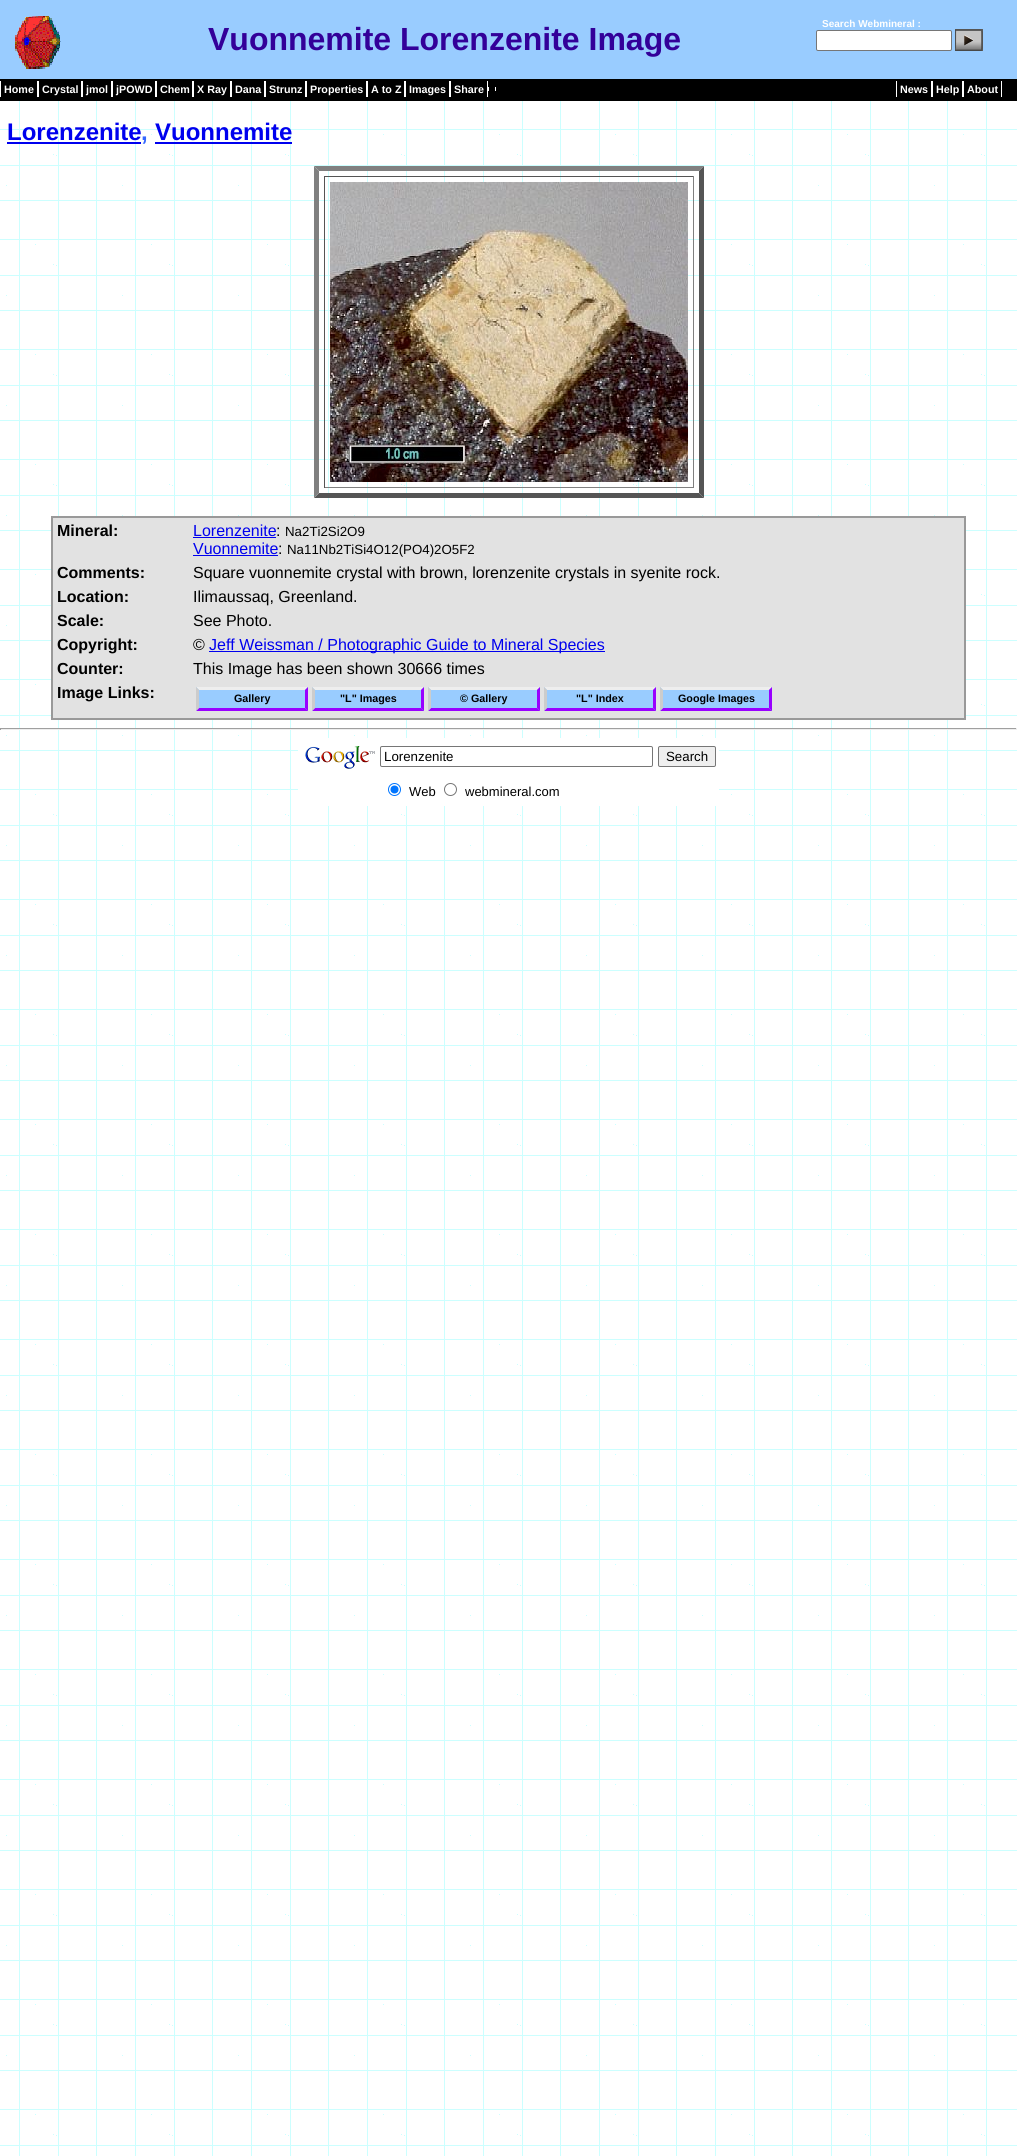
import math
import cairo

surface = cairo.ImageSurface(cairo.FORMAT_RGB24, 1017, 2156)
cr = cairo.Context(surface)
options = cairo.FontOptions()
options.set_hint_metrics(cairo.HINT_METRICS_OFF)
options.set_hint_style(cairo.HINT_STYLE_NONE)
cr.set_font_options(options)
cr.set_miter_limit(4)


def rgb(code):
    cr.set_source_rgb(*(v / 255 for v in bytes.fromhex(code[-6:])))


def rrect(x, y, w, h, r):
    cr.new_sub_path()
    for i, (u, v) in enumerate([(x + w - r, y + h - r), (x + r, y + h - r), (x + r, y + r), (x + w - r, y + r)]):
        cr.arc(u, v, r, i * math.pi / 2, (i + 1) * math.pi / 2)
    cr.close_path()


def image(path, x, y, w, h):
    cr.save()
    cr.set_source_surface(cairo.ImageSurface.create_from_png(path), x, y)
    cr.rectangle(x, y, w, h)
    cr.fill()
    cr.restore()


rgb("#ffffff")
cr.paint()
image("img/1.png", 0, 101, 1017, 2055)
rgb("#99ccff")
cr.rectangle(0, 0, 1017, 79)
cr.fill()
rgb("#000000")
cr.rectangle(0, 79, 1017, 22)
cr.fill()
image("img/2.png", 15, 16, 46, 53)
rgb("#ffffff")
rrect(816.5, 30.5, 135, 20, 1.5)
cr.fill_preserve()
rgb("#767676")
cr.set_line_width(1)
cr.stroke()
image("img/3.png", 955, 29, 28, 22)
for x, y, w, h, color in [
    (37, 81, 2, 16, "#ffffff"),
    (0, 81, 1, 16, "#ffffff"),
    (81, 81, 2, 16, "#ffffff"),
    (111, 81, 2, 16, "#ffffff"),
    (155, 81, 2, 16, "#ffffff"),
    (192, 81, 2, 16, "#ffffff"),
    (230, 81, 2, 16, "#ffffff"),
    (264, 81, 2, 16, "#ffffff"),
    (305, 81, 2, 16, "#ffffff"),
    (366, 81, 2, 16, "#ffffff"),
    (404, 81, 2, 16, "#ffffff"),
    (449, 81, 2, 16, "#ffffff"),
    (487, 81, 1, 16, "#ffffff"),
    (495, 87, 1, 4, "#ffffff"),
    (488, 87, 1, 4, "#ffffff"),
    (931, 81, 2, 16, "#ffffff"),
    (896, 81, 1, 16, "#ffffff"),
    (962, 81, 2, 16, "#ffffff"),
    (1001, 81, 1, 16, "#ffffff"),
    (7, 142, 134, 2, "#0000ee"),
    (155, 142, 137, 2, "#0000ee"),
]:
    rgb(color)
    cr.rectangle(x, y, w, h)
    cr.fill()
rgb("#808080")
cr.new_path()
cr.move_to(314, 166)
cr.line_to(704, 166)
cr.line_to(699, 171)
cr.line_to(319, 171)
cr.close_path()
cr.fill()
rgb("#555555")
cr.new_path()
cr.move_to(704, 166)
cr.line_to(704, 498)
cr.line_to(699, 493)
cr.line_to(699, 171)
cr.close_path()
cr.fill()
cr.new_path()
cr.move_to(704, 498)
cr.line_to(314, 498)
cr.line_to(319, 493)
cr.line_to(699, 493)
cr.close_path()
cr.fill()
rgb("#808080")
cr.new_path()
cr.move_to(314, 498)
cr.line_to(314, 166)
cr.line_to(319, 171)
cr.line_to(319, 493)
cr.close_path()
cr.fill()
for x, y, w, h, color in [
    (324, 176, 370, 1, "#555555"),
    (693, 176, 1, 312, "#808080"),
    (324, 487, 370, 1, "#808080"),
    (324, 176, 1, 312, "#555555"),
]:
    rgb(color)
    cr.rectangle(x, y, w, h)
    cr.fill()
image("img/4.png", 330, 182, 358, 300)
rgb("#e2e2e2")
cr.rectangle(52, 517, 913, 202)
cr.fill_preserve()
rgb("#999999")
cr.set_line_width(2)
cr.stroke()
for x, y, w, h, color in [
    (193, 537, 83, 1, "#0000ee"),
    (193, 555, 85, 1, "#0000ee"),
    (209, 651, 396, 1, "#0000ee"),
    (196, 687, 112, 24, "#99ccff"),
]:
    rgb(color)
    cr.rectangle(x, y, w, h)
    cr.fill()
rgb("#eeeeee")
cr.new_path()
cr.move_to(196, 687)
cr.line_to(308, 687)
cr.line_to(305, 690)
cr.line_to(199, 690)
cr.close_path()
cr.fill()
rgb("#9900ff")
cr.new_path()
cr.move_to(308, 687)
cr.line_to(308, 711)
cr.line_to(305, 708)
cr.line_to(305, 690)
cr.close_path()
cr.fill()
cr.new_path()
cr.move_to(308, 711)
cr.line_to(196, 711)
cr.line_to(199, 708)
cr.line_to(305, 708)
cr.close_path()
cr.fill()
rgb("#cccccc")
cr.new_path()
cr.move_to(196, 711)
cr.line_to(196, 687)
cr.line_to(199, 690)
cr.line_to(199, 708)
cr.close_path()
cr.fill()
rgb("#99ccff")
cr.rectangle(312, 687, 112, 24)
cr.fill()
rgb("#eeeeee")
cr.new_path()
cr.move_to(312, 687)
cr.line_to(424, 687)
cr.line_to(421, 690)
cr.line_to(315, 690)
cr.close_path()
cr.fill()
rgb("#9900ff")
cr.new_path()
cr.move_to(424, 687)
cr.line_to(424, 711)
cr.line_to(421, 708)
cr.line_to(421, 690)
cr.close_path()
cr.fill()
cr.new_path()
cr.move_to(424, 711)
cr.line_to(312, 711)
cr.line_to(315, 708)
cr.line_to(421, 708)
cr.close_path()
cr.fill()
rgb("#cccccc")
cr.new_path()
cr.move_to(312, 711)
cr.line_to(312, 687)
cr.line_to(315, 690)
cr.line_to(315, 708)
cr.close_path()
cr.fill()
rgb("#99ccff")
cr.rectangle(428, 687, 112, 24)
cr.fill()
rgb("#eeeeee")
cr.new_path()
cr.move_to(428, 687)
cr.line_to(540, 687)
cr.line_to(537, 690)
cr.line_to(431, 690)
cr.close_path()
cr.fill()
rgb("#9900ff")
cr.new_path()
cr.move_to(540, 687)
cr.line_to(540, 711)
cr.line_to(537, 708)
cr.line_to(537, 690)
cr.close_path()
cr.fill()
cr.new_path()
cr.move_to(540, 711)
cr.line_to(428, 711)
cr.line_to(431, 708)
cr.line_to(537, 708)
cr.close_path()
cr.fill()
rgb("#cccccc")
cr.new_path()
cr.move_to(428, 711)
cr.line_to(428, 687)
cr.line_to(431, 690)
cr.line_to(431, 708)
cr.close_path()
cr.fill()
rgb("#99ccff")
cr.rectangle(544, 687, 112, 24)
cr.fill()
rgb("#eeeeee")
cr.new_path()
cr.move_to(544, 687)
cr.line_to(656, 687)
cr.line_to(653, 690)
cr.line_to(547, 690)
cr.close_path()
cr.fill()
rgb("#9900ff")
cr.new_path()
cr.move_to(656, 687)
cr.line_to(656, 711)
cr.line_to(653, 708)
cr.line_to(653, 690)
cr.close_path()
cr.fill()
cr.new_path()
cr.move_to(656, 711)
cr.line_to(544, 711)
cr.line_to(547, 708)
cr.line_to(653, 708)
cr.close_path()
cr.fill()
rgb("#cccccc")
cr.new_path()
cr.move_to(544, 711)
cr.line_to(544, 687)
cr.line_to(547, 690)
cr.line_to(547, 708)
cr.close_path()
cr.fill()
rgb("#99ccff")
cr.rectangle(660, 687, 112, 24)
cr.fill()
rgb("#eeeeee")
cr.new_path()
cr.move_to(660, 687)
cr.line_to(772, 687)
cr.line_to(769, 690)
cr.line_to(663, 690)
cr.close_path()
cr.fill()
rgb("#9900ff")
cr.new_path()
cr.move_to(772, 687)
cr.line_to(772, 711)
cr.line_to(769, 708)
cr.line_to(769, 690)
cr.close_path()
cr.fill()
cr.new_path()
cr.move_to(772, 711)
cr.line_to(660, 711)
cr.line_to(663, 708)
cr.line_to(769, 708)
cr.close_path()
cr.fill()
rgb("#cccccc")
cr.new_path()
cr.move_to(660, 711)
cr.line_to(660, 687)
cr.line_to(663, 690)
cr.line_to(663, 708)
cr.close_path()
cr.fill()
for x, y, w, h, color in [
    (0, 728, 1017, 1, "#9f9f9f"),
    (1016, 728, 1, 2, "#eeeeee"),
    (0, 729, 1017, 1, "#eeeeee"),
    (0, 728, 1, 2, "#9f9f9f"),
    (298, 738, 421, 68, "#ffffff"),
]:
    rgb(color)
    cr.rectangle(x, y, w, h)
    cr.fill()
image("img/5.png", 305, 746, 70, 23)
rrect(380.5, 746.5, 272, 20, 1.5)
rgb("#767676")
cr.set_line_width(1)
cr.stroke()
rgb("#efefef")
rrect(658.5, 746.5, 57, 20, 1.5)
cr.fill_preserve()
rgb("#767676")
cr.stroke()
cr.arc(394.5, 789.5, 6, 0, 2 * math.pi)
rgb("#0075ff")
cr.stroke()
cr.arc(394.5, 789.5, 4, 0, 2 * math.pi)
cr.fill()
cr.arc(450.5, 789.5, 6, 0, 2 * math.pi)
rgb("#767676")
cr.stroke()
cr.select_font_face("Liberation Sans", cairo.FONT_SLANT_NORMAL, cairo.FONT_WEIGHT_BOLD)
cr.set_font_size(10)
rgb("#ffffff")
cr.move_to(822, 27)
cr.show_text("Search Webmineral :")
cr.set_font_size(32)
rgb("#330099")
cr.move_to(208, 50)
cr.show_text("Vuonnemite Lorenzenite Image")
cr.set_font_size(10.75)
rgb("#ffffff")
for x, y, s in [
    (4, 93, "Home"),
    (42, 93, "Crystal"),
    (86, 93, "jmol"),
    (116, 93, "jPOWD"),
    (160, 93, "Chem"),
    (197, 93, "X Ray"),
    (235, 93, "Dana"),
    (269, 93, "Strunz"),
    (310, 93, "Properties"),
    (371, 93, "A to Z"),
    (409, 93, "Images"),
    (454, 93, "Share"),
    (900, 93, "News"),
    (936, 93, "Help"),
    (967, 93, "About"),
]:
    cr.move_to(x, y)
    cr.show_text(s)
cr.set_font_size(24)
rgb("#0000ee")
cr.move_to(7, 140)
cr.show_text("Lorenzenite")
rgb("#3366ff")
cr.move_to(141, 140)
cr.show_text(",")
rgb("#0000ee")
cr.move_to(155, 140)
cr.show_text("Vuonnemite")
cr.set_font_size(16)
rgb("#000000")
cr.move_to(57, 536)
cr.show_text("Mineral:")
cr.select_font_face("Liberation Sans")
rgb("#0000ee")
cr.move_to(193, 536)
cr.show_text("Lorenzenite")
rgb("#000000")
cr.move_to(276, 536)
cr.show_text(":")
cr.set_font_size(13.3)
cr.move_to(285, 536)
cr.show_text("Na2Ti2Si2O9")
cr.set_font_size(16)
rgb("#0000ee")
cr.move_to(193, 554)
cr.show_text("Vuonnemite")
rgb("#000000")
cr.move_to(278, 554)
cr.show_text(":")
cr.set_font_size(13.3)
cr.move_to(287, 554)
cr.show_text("Na11Nb2TiSi4O12(PO4)2O5F2")
cr.select_font_face("Liberation Sans", cairo.FONT_SLANT_NORMAL, cairo.FONT_WEIGHT_BOLD)
cr.set_font_size(16)
cr.move_to(57, 578)
cr.show_text("Comments:")
cr.select_font_face("Liberation Sans")
cr.move_to(193, 578)
cr.show_text("Square vuonnemite crystal with brown, lorenzenite crystals in syenite rock.")
cr.select_font_face("Liberation Sans", cairo.FONT_SLANT_NORMAL, cairo.FONT_WEIGHT_BOLD)
cr.move_to(57, 602)
cr.show_text("Location:")
cr.select_font_face("Liberation Sans")
cr.move_to(193, 602)
cr.show_text("Ilimaussaq, Greenland.")
cr.select_font_face("Liberation Sans", cairo.FONT_SLANT_NORMAL, cairo.FONT_WEIGHT_BOLD)
cr.move_to(57, 626)
cr.show_text("Scale:")
cr.select_font_face("Liberation Sans")
cr.move_to(193, 626)
cr.show_text("See Photo.")
cr.select_font_face("Liberation Sans", cairo.FONT_SLANT_NORMAL, cairo.FONT_WEIGHT_BOLD)
cr.move_to(57, 650)
cr.show_text("Copyright:")
cr.select_font_face("Liberation Sans")
cr.move_to(193, 650)
cr.show_text("©")
rgb("#0000ee")
cr.move_to(209, 650)
cr.show_text("Jeff Weissman / Photographic Guide to Mineral Species")
cr.select_font_face("Liberation Sans", cairo.FONT_SLANT_NORMAL, cairo.FONT_WEIGHT_BOLD)
rgb("#000000")
cr.move_to(57, 674)
cr.show_text("Counter:")
cr.select_font_face("Liberation Sans")
cr.move_to(193, 674)
cr.show_text("This Image has been shown 30666 times")
cr.select_font_face("Liberation Sans", cairo.FONT_SLANT_NORMAL, cairo.FONT_WEIGHT_BOLD)
cr.move_to(57, 698)
cr.show_text("Image Links:")
cr.set_font_size(10.75)
for x, y, s in [
    (234, 702, "Gallery"),
    (340, 702, "\"L\" Images"),
    (460, 702, "© Gallery"),
    (576, 702, "\"L\" Index"),
    (678, 702, "Google Images"),
]:
    cr.move_to(x, y)
    cr.show_text(s)
cr.select_font_face("Liberation Sans")
cr.set_font_size(13.3)
cr.move_to(384, 761)
cr.show_text("Lorenzenite")
cr.move_to(666, 761)
cr.show_text("Search")
cr.set_font_size(13)
cr.move_to(409, 796)
cr.show_text("Web")
cr.move_to(465, 796)
cr.show_text("webmineral.com")
surface.write_to_png("page.png")
